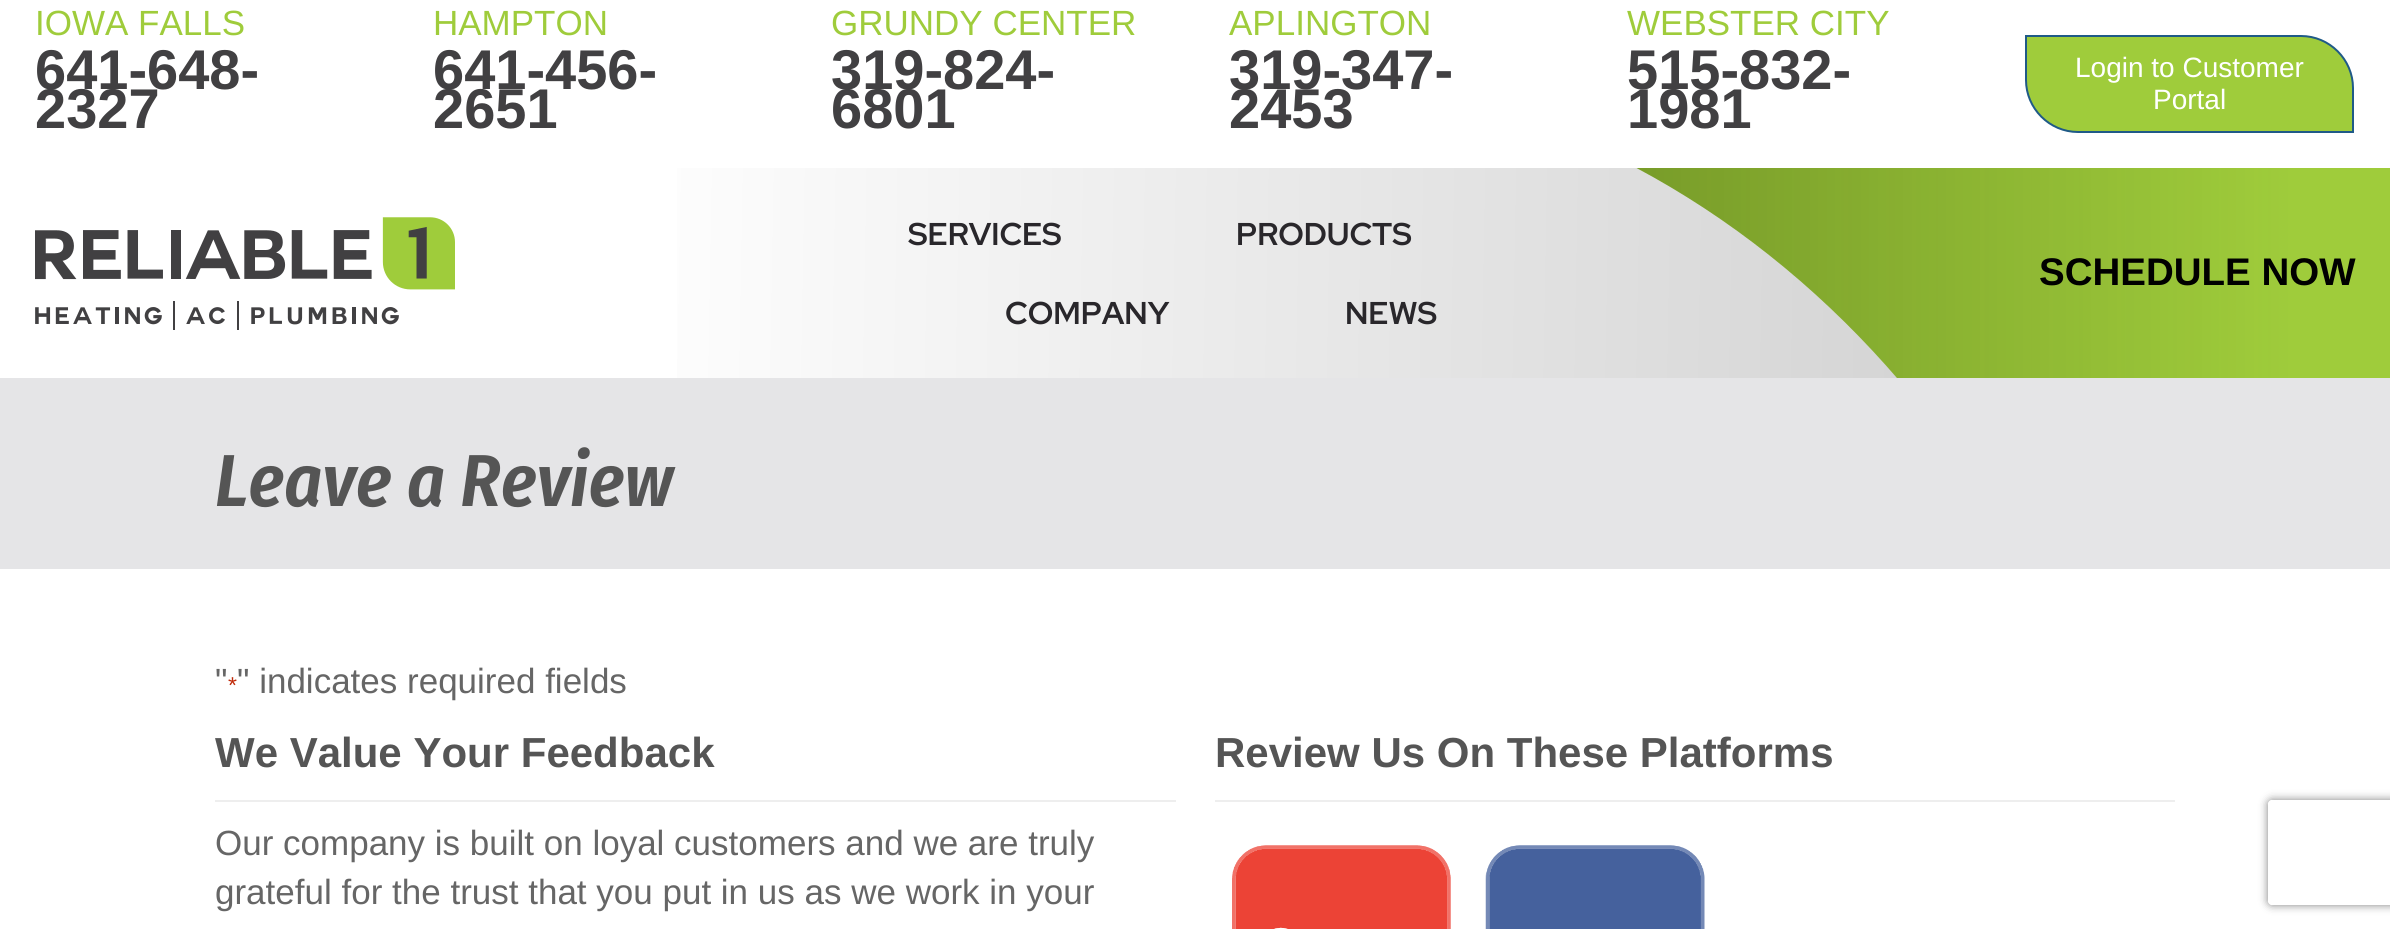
import math
import cairo

surface = cairo.ImageSurface(cairo.FORMAT_RGB24, 2390, 929)
cr = cairo.Context(surface)
options = cairo.FontOptions()
options.set_hint_metrics(cairo.HINT_METRICS_OFF)
options.set_hint_style(cairo.HINT_STYLE_NONE)
cr.set_font_options(options)
cr.set_miter_limit(4)


def rgb(code):
    cr.set_source_rgb(*(v / 255 for v in bytes.fromhex(code[-6:])))


def rrect(x, y, w, h, r):
    cr.new_sub_path()
    for i, (u, v) in enumerate([(x + w - r, y + h - r), (x + r, y + h - r), (x + r, y + r), (x + w - r, y + r)]):
        cr.arc(u, v, r, i * math.pi / 2, (i + 1) * math.pi / 2)
    cr.close_path()


def soft_shadow(x, y, w, h, r, blur, alpha):
    cr.push_group_with_content(cairo.CONTENT_ALPHA)
    cr.set_operator(cairo.OPERATOR_SOURCE)
    for i in range(15, -16, -2):
        e = blur * i / 6
        if min(w, h) + 2 * e > 0:
            cr.set_source_rgba(0, 0, 0, alpha * math.erfc((i - 1) / 8.5) / 2)
            rrect(x - e, y - e, w + 2 * e, h + 2 * e, max(0, min(r + e + blur * .6, min(w, h) / 2 + e)))
            cr.fill()
    cr.mask(cr.pop_group())


def image(path, x, y, w, h):
    cr.save()
    cr.set_source_surface(cairo.ImageSurface.create_from_png(path), x, y)
    cr.rectangle(x, y, w, h)
    cr.fill()
    cr.restore()


rgb("#ffffff")
cr.paint()
rgb("#9fcc3b")
cr.new_path()
cr.move_to(2026, 36)
cr.line_to(2301, 36)
cr.curve_to(2329.5, 36, 2353, 59.5, 2353, 88)
cr.line_to(2353, 132)
cr.line_to(2078, 132)
cr.curve_to(2049.5, 132, 2026, 108.5, 2026, 80)
cr.close_path()
cr.fill_preserve()
rgb("#1f5a87")
cr.stroke()
image("img/1.png", 35, 217, 420, 113)
gradient = cairo.LinearGradient(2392, 289, 602, 257)
gradient.add_color_stop_rgba(0, 0.773, 0.773, 0.773, 1)
gradient.add_color_stop_rgba(1, 1, 1, 1, 1)
cr.set_source(gradient)
cr.rectangle(677, 168, 1220, 210)
cr.fill()
cr.save()
cr.rectangle(1603, 168, 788, 210)
cr.clip()
rgb("#9fcc3b")
cr.new_path()
cr.move_to(2136, 884)
cr.line_to(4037, 884)
cr.line_to(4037, 52)
cr.line_to(1021, 52)
cr.line_to(1021, 70)
cr.line_to(1245, 70)
cr.curve_to(1699, 70, 2053, 432, 2136, 884)
cr.close_path()
cr.fill()
gradient = cairo.LinearGradient(2292, 428, 1421, 428)
gradient.add_color_stop_rgba(0, 0.125, 0.18, 0, 0)
gradient.add_color_stop_rgba(1, 0.125, 0.18, 0, 0.4)
cr.set_source(gradient)
cr.new_path()
cr.move_to(1227, 52)
cr.line_to(1227, 70)
cr.line_to(1245, 70)
cr.curve_to(1699, 70, 2053, 432, 2136, 884)
cr.line_to(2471, 884)
cr.line_to(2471, 52)
cr.close_path()
cr.fill()
cr.restore()
for x, y, w, h, color in [
    (0, 378, 2390, 191, "#e5e5e7"),
    (215, 800, 961, 2, "#eeeeee"),
    (1215, 800, 960, 2, "#eeeeee"),
]:
    rgb(color)
    cr.rectangle(x, y, w, h)
    cr.fill()
image("img/2.png", 1232, 845, 219, 84)
image("img/3.png", 1485, 845, 220, 84)
cr.save()
cr.set_fill_rule(cairo.FILL_RULE_EVEN_ODD)
cr.new_path()
cr.move_to(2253, 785)
cr.line_to(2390, 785)
cr.line_to(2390, 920)
cr.line_to(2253, 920)
cr.close_path()
cr.move_to(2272, 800)
cr.line_to(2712, 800)
cr.curve_to(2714, 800, 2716, 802, 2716, 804)
cr.line_to(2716, 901)
cr.curve_to(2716, 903, 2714, 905, 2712, 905)
cr.line_to(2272, 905)
cr.curve_to(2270, 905, 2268, 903, 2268, 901)
cr.line_to(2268, 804)
cr.curve_to(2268, 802, 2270, 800, 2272, 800)
cr.close_path()
cr.clip()
rgb("#808080")
soft_shadow(2268, 800, 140, 105, 4, 4.5, 1)
cr.restore()
cr.select_font_face("Liberation Sans")
cr.set_font_size(35)
rgb("#9fcc3b")
cr.move_to(35, 35)
cr.show_text("IOWA FALLS")
cr.select_font_face("Liberation Sans", cairo.FONT_SLANT_NORMAL, cairo.FONT_WEIGHT_BOLD)
cr.set_font_size(56)
rgb("#414042")
cr.move_to(35, 89)
cr.show_text("641-648-")
cr.move_to(35, 128)
cr.show_text("2327")
cr.select_font_face("Liberation Sans")
cr.set_font_size(35)
rgb("#9fcc3b")
cr.move_to(433, 35)
cr.show_text("HAMPTON")
cr.select_font_face("Liberation Sans", cairo.FONT_SLANT_NORMAL, cairo.FONT_WEIGHT_BOLD)
cr.set_font_size(56)
rgb("#414042")
cr.move_to(433, 89)
cr.show_text("641-456-")
cr.move_to(433, 128)
cr.show_text("2651")
cr.select_font_face("Liberation Sans")
cr.set_font_size(35)
rgb("#9fcc3b")
cr.move_to(831, 35)
cr.show_text("GRUNDY CENTER")
cr.select_font_face("Liberation Sans", cairo.FONT_SLANT_NORMAL, cairo.FONT_WEIGHT_BOLD)
cr.set_font_size(56)
rgb("#414042")
cr.move_to(831, 89)
cr.show_text("319-824-")
cr.move_to(831, 128)
cr.show_text("6801")
cr.select_font_face("Liberation Sans")
cr.set_font_size(35)
rgb("#9fcc3b")
cr.move_to(1229, 35)
cr.show_text("APLINGTON")
cr.select_font_face("Liberation Sans", cairo.FONT_SLANT_NORMAL, cairo.FONT_WEIGHT_BOLD)
cr.set_font_size(56)
rgb("#414042")
cr.move_to(1229, 89)
cr.show_text("319-347-")
cr.move_to(1229, 128)
cr.show_text("2453")
cr.select_font_face("Liberation Sans")
cr.set_font_size(35)
rgb("#9fcc3b")
cr.move_to(1627, 35)
cr.show_text("WEBSTER CITY")
cr.select_font_face("Liberation Sans", cairo.FONT_SLANT_NORMAL, cairo.FONT_WEIGHT_BOLD)
cr.set_font_size(56)
rgb("#414042")
cr.move_to(1627, 89)
cr.show_text("515-832-")
cr.move_to(1627, 128)
cr.show_text("1981")
cr.select_font_face("Liberation Sans")
cr.set_font_size(28)
rgb("#ffffff")
cr.move_to(2075, 77)
cr.show_text("Login to Customer")
cr.move_to(2153, 109)
cr.show_text("Portal")
cr.select_font_face("Red Hat Display", cairo.FONT_SLANT_NORMAL, cairo.FONT_WEIGHT_BOLD)
cr.set_font_size(31.5)
rgb("#29272b")
for x, y, s in [
    (908, 245, "SERVICES"),
    (1236, 245, "PRODUCTS"),
    (1005, 324, "COMPANY"),
    (1345, 324, "NEWS"),
]:
    cr.move_to(x, y)
    cr.show_text(s)
cr.select_font_face("Liberation Sans", cairo.FONT_SLANT_NORMAL, cairo.FONT_WEIGHT_BOLD)
cr.set_font_size(38.5)
rgb("#000000")
cr.move_to(2039, 285)
cr.show_text("SCHEDULE NOW")
cr.select_font_face("Fira Sans Condensed SemiBold", cairo.FONT_SLANT_ITALIC)
cr.set_font_size(73.5)
rgb("#555555")
cr.move_to(215, 506)
cr.show_text("Leave a Review")
cr.select_font_face("Liberation Sans")
cr.set_font_size(35)
rgb("#666666")
cr.move_to(215, 693)
cr.show_text("\"")
cr.move_to(237, 693)
cr.show_text("\" indicates required fields")
cr.set_font_size(23)
rgb("#c02b0a")
cr.move_to(228, 693)
cr.show_text("*")
cr.select_font_face("Liberation Sans", cairo.FONT_SLANT_NORMAL, cairo.FONT_WEIGHT_BOLD)
cr.set_font_size(42)
rgb("#555555")
cr.move_to(215, 767)
cr.show_text("We Value Your Feedback")
cr.select_font_face("Liberation Sans")
cr.set_font_size(35)
rgb("#666666")
cr.move_to(215, 855)
cr.show_text("Our company is built on loyal customers and we are truly")
cr.move_to(215, 904)
cr.show_text("grateful for the trust that you put in us as we work in your")
cr.select_font_face("Liberation Sans", cairo.FONT_SLANT_NORMAL, cairo.FONT_WEIGHT_BOLD)
cr.set_font_size(42)
rgb("#555555")
cr.move_to(1215, 767)
cr.show_text("Review Us On These Platforms")
surface.write_to_png("page.png")
